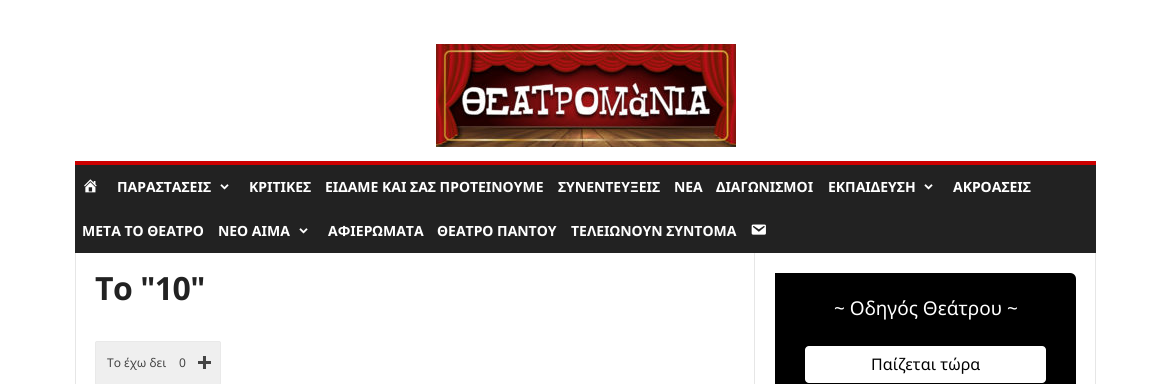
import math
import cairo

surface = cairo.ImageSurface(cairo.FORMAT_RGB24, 1171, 384)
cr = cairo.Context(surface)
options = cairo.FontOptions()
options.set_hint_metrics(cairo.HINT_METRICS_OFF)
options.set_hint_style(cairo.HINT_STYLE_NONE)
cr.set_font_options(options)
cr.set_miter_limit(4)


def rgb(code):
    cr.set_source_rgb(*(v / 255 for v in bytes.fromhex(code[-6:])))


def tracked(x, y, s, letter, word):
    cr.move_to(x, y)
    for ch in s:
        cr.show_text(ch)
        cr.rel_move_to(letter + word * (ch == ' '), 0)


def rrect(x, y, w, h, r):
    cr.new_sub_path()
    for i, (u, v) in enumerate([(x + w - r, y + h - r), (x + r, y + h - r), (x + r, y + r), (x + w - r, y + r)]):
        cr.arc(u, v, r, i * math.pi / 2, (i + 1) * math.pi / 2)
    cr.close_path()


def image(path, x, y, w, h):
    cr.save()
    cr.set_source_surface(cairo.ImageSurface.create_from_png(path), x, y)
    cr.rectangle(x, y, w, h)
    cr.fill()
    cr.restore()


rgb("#ffffff")
cr.paint()
image("img/1.png", 436, 44, 300, 103)
rgb("#222222")
cr.rectangle(75, 165, 1021, 88)
cr.fill()
rgb("#cc0000")
cr.rectangle(75, 161, 1021, 4)
cr.fill()
image("img/2.png", 84, 179, 13, 14)
image("img/3.png", 220, 184, 9, 6)
image("img/3.png", 924, 184, 9, 6)
image("img/3.png", 299, 228, 9, 6)
image("img/4.png", 751, 224, 15, 11)
rgb("#e6e6e6")
cr.rectangle(75, 253, 1, 131)
cr.fill()
cr.rectangle(754, 253, 1, 131)
cr.fill()
rgb("#efefef")
rrect(95.5, 341.5, 125, 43, 1.5)
cr.fill_preserve()
rgb("#e9e9e9")
cr.set_line_width(1)
cr.stroke()
image("img/5.png", 198, 356, 13, 13)
rgb("#000000")
cr.new_path()
cr.move_to(775, 273)
cr.line_to(1070, 273)
cr.curve_to(1073.5, 273, 1076, 275.5, 1076, 279)
cr.line_to(1076, 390)
cr.line_to(775, 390)
cr.close_path()
cr.fill()
rgb("#ffffff")
rrect(805, 346, 241, 37, 4)
cr.fill()
rgb("#e6e6e6")
cr.rectangle(1095, 253, 1, 131)
cr.fill()
cr.select_font_face("Noto Sans", cairo.FONT_SLANT_NORMAL, cairo.FONT_WEIGHT_BOLD)
cr.set_font_size(14)
rgb("#ffffff")
for x, y, s in [
    (117, 192, "ΠΑΡΑΣΤΑΣΕΙΣ"),
    (249, 192, "ΚΡΙΤΙΚΕΣ"),
    (325, 192, "ΕΙΔΑΜΕ ΚΑΙ ΣΑΣ ΠΡΟΤΕΙΝΟΥΜΕ"),
    (558, 192, "ΣΥΝΕΝΤΕΥΞΕΙΣ"),
    (674, 192, "ΝΕΑ"),
    (716, 192, "ΔΙΑΓΩΝΙΣΜΟΙ"),
    (828, 192, "ΕΚΠΑΙΔΕΥΣΗ"),
    (953, 192, "ΑΚΡΟΑΣΕΙΣ"),
    (82, 236, "ΜΕΤΑ ΤΟ ΘΕΑΤΡΟ"),
    (218, 236, "ΝΕΟ ΑΙΜΑ"),
    (328, 236, "ΑΦΙΕΡΩΜΑΤΑ"),
    (437, 236, "ΘΕΑΤΡΟ ΠΑΝΤΟΥ"),
    (571, 236, "ΤΕΛΕΙΩΝΟΥΝ ΣΥΝΤΟΜΑ"),
]:
    cr.move_to(x, y)
    cr.show_text(s)
cr.select_font_face("Open Sans", cairo.FONT_SLANT_NORMAL, cairo.FONT_WEIGHT_BOLD)
cr.set_font_size(32)
rgb("#222222")
tracked(95, 300, "Το \"10\"", -0.5, 0)
cr.select_font_face("Noto Sans")
cr.set_font_size(12)
rgb("#444444")
cr.move_to(107, 367)
cr.show_text("Το έχω δει")
cr.move_to(179, 367)
cr.show_text("0")
cr.set_font_size(19)
rgb("#ffffff")
cr.move_to(834, 315)
cr.show_text("~ Οδηγός Θεάτρου ~")
cr.set_font_size(16)
rgb("#000000")
cr.move_to(871, 370)
cr.show_text("Παίζεται τώρα")
surface.write_to_png("page.png")
